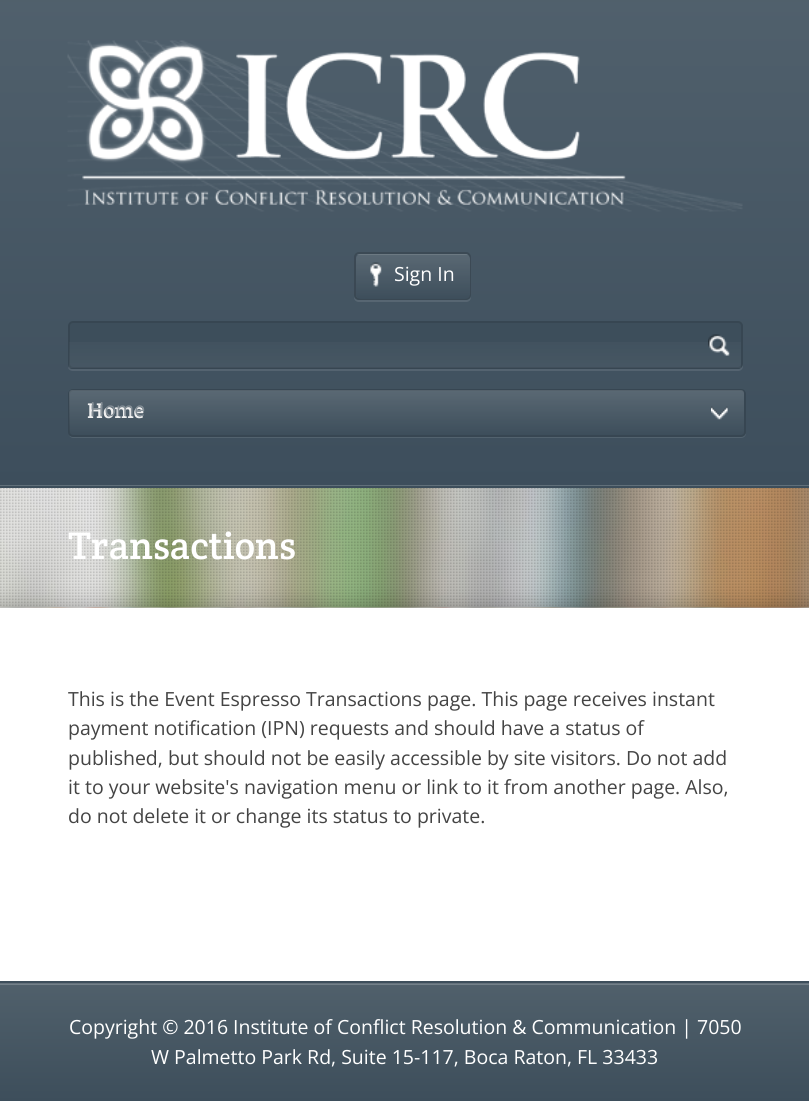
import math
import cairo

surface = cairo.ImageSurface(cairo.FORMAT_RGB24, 809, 1101)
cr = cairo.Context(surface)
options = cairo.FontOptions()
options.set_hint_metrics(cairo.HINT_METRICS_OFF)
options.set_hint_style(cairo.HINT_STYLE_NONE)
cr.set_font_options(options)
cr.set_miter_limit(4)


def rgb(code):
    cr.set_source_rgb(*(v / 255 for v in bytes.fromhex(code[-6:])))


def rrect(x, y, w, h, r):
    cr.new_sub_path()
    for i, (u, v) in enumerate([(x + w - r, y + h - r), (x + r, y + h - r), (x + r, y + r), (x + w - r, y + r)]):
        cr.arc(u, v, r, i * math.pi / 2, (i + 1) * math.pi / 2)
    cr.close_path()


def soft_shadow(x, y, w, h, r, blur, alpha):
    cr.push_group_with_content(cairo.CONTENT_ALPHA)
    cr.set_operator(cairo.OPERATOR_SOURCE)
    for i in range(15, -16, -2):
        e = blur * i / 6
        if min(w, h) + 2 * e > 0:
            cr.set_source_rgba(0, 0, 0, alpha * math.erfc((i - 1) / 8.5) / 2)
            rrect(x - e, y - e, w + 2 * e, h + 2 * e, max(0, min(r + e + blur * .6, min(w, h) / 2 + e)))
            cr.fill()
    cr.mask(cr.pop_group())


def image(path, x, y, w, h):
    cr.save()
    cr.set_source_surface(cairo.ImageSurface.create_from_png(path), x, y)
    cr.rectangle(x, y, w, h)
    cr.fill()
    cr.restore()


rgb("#ffffff")
cr.paint()
gradient = cairo.LinearGradient(405, 1.5, 405, 485)
gradient.add_color_stop_rgba(0, 0.314, 0.376, 0.424, 1)
gradient.add_color_stop_rgba(1, 0.239, 0.306, 0.361, 1)
cr.set_source(gradient)
cr.rectangle(0, 2, 809, 483)
cr.fill()
gradient = cairo.LinearGradient(405, 485, 405, 968)
gradient.add_color_stop_rgba(0, 0.314, 0.376, 0.42, 1)
gradient.add_color_stop_rgba(1, 0.239, 0.306, 0.357, 1)
cr.set_source(gradient)
cr.rectangle(0, 485, 809, 1)
cr.fill()
rgb("#50606b")
cr.rectangle(0, 0, 809, 2)
cr.fill()
cr.set_source_rgba(1, 1, 1, 0.1)
cr.rectangle(0, 485, 809, 1)
cr.fill()
image("img/1.png", 67, 40, 676, 172)
rgb("#576672")
cr.new_path()
cr.move_to(354, 296)
cr.line_to(354, 297)
cr.curve_to(354, 300, 356, 302, 359, 302)
cr.line_to(466, 302)
cr.curve_to(469, 302, 471, 300, 471, 297)
cr.line_to(471, 296)
cr.curve_to(471, 298, 469, 300, 466, 300)
cr.line_to(358, 300)
cr.curve_to(356, 300, 354, 298, 354, 296)
cr.close_path()
cr.fill()
rrect(355, 253, 115, 46, 4)
cr.set_source_rgba(0, 0, 0, 0.15)
cr.stroke()
rgb("#3d4e5b")
rrect(356, 254, 114, 45, 5)
cr.fill()
gradient = cairo.LinearGradient(413, 254, 413, 299)
gradient.add_color_stop_rgba(0, 1, 1, 1, 0.15)
gradient.add_color_stop_rgba(1, 1, 1, 1, 0)
cr.set_source(gradient)
rrect(356, 254, 114, 45, 5)
cr.fill()
image("img/2.png", 357, 254, 111, 1)
image("img/3.png", 370, 262, 12, 25)
rgb("#546370")
cr.new_path()
cr.move_to(68, 367)
cr.curve_to(68, 369, 70, 371, 73, 371)
cr.line_to(738, 371)
cr.curve_to(741, 371, 743, 369, 743, 366)
cr.line_to(743, 328)
cr.line_to(742, 326)
cr.line_to(742, 364)
cr.curve_to(742, 367, 740, 369, 738, 369)
cr.line_to(72, 369)
cr.curve_to(70, 369, 69, 368, 68, 367)
cr.close_path()
cr.fill()
rgb("#3d4e5b")
rrect(68, 321, 675, 48, 5)
cr.fill()
image("img/4.png", 708, 334, 22, 22)
rrect(69, 322, 673, 46, 4)
cr.set_source_rgba(0, 0, 0, 0.1)
cr.stroke()
gradient = cairo.LinearGradient(405, 322, 405, 368)
gradient.add_color_stop_rgba(0, 1, 1, 1, 0)
gradient.add_color_stop_rgba(1, 1, 1, 1, 0.05)
cr.set_source(gradient)
cr.rectangle(69, 342, 672, 26)
cr.fill()
rgb("#52626e")
cr.new_path()
cr.move_to(68, 434)
cr.curve_to(69, 436, 71, 438, 73, 438)
cr.line_to(741, 438)
cr.curve_to(744, 438, 746, 436, 746, 433)
cr.line_to(746, 395)
cr.line_to(745, 393)
cr.line_to(746, 432)
cr.curve_to(746, 434, 743, 436, 741, 436)
cr.line_to(72, 436)
cr.curve_to(70, 436, 69, 436, 68, 434)
cr.close_path()
cr.fill()
rgb("#3d4e5b")
rrect(68, 389, 678, 48, 5)
cr.fill()
image("img/5.png", 711, 406, 17, 14)
rrect(69, 390, 676, 46, 4)
cr.set_source_rgba(0, 0, 0, 0.1)
cr.stroke()
gradient = cairo.LinearGradient(407, 390, 407, 435)
gradient.add_color_stop_rgba(0, 1, 1, 1, 0.15)
gradient.add_color_stop_rgba(1, 1, 1, 1, 0)
cr.set_source(gradient)
rrect(69, 390, 675, 45, 3)
cr.fill()
rgb("#3d4e5b")
cr.rectangle(0, 486, 809, 2)
cr.fill()
image("img/6.png", 0, 607, 809, 1)
image("img/7.png", 0, 488, 809, 120)
image("img/8.png", 0, 488, 809, 119)
cr.save()
cr.rectangle(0, 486, 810, 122)
cr.clip()
rgb("#000000")
soft_shadow(0, 608, 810, 7, 0, 11, 0.3)
cr.restore()
rgb("#64717c")
cr.rectangle(0, 983, 809, 1)
cr.fill()
gradient = cairo.LinearGradient(405, 984, 405, 1101)
gradient.add_color_stop_rgba(0, 0.314, 0.376, 0.42, 1)
gradient.add_color_stop_rgba(1, 0.239, 0.306, 0.357, 1)
cr.set_source(gradient)
cr.rectangle(0, 985, 809, 116)
cr.fill()
gradient = cairo.LinearGradient(405, 984, 405, 1101)
gradient.add_color_stop_rgba(0, 0.451, 0.502, 0.537, 1)
gradient.add_color_stop_rgba(1, 0.392, 0.443, 0.486, 1)
cr.set_source(gradient)
cr.rectangle(0, 984, 809, 1)
cr.fill()
rgb("#3d4e5b")
cr.rectangle(0, 981, 809, 2)
cr.fill()
cr.select_font_face("Open Sans")
cr.set_font_size(19.5)
rgb("#ffffff")
cr.move_to(394, 281)
cr.show_text("Sign In")
cr.select_font_face("Crete Round")
cr.set_font_size(21.5)
rgb("#f0f0f0")
cr.move_to(87, 418)
cr.show_text("Home")
cr.select_font_face("Open Sans")
cr.set_font_size(19.5)
rgb("#858f97")
cr.move_to(90, 416)
cr.show_text("Home")
cr.select_font_face("Crete Round")
cr.set_font_size(39)
rgb("#ffffff")
cr.move_to(68, 559)
cr.show_text("Transactions")
cr.select_font_face("Open Sans")
cr.set_font_size(19.5)
rgb("#444444")
for x, y, s in [
    (68, 706, "This is the Event Espresso Transactions page. This page receives instant"),
    (68, 735, "payment notification (IPN) requests and should have a status of"),
    (68, 765, "published, but should not be easily accessible by site visitors. Do not add"),
    (68, 794, "it to your website's navigation menu or link to it from another page. Also,"),
    (68, 823, "do not delete it or change its status to private."),
]:
    cr.move_to(x, y)
    cr.show_text(s)
rgb("#ffffff")
cr.move_to(69, 1034)
cr.show_text("Copyright © 2016 Institute of Conflict Resolution & Communication | 7050")
cr.move_to(151, 1064)
cr.show_text("W Palmetto Park Rd, Suite 15-117, Boca Raton, FL 33433")
surface.write_to_png("page.png")
